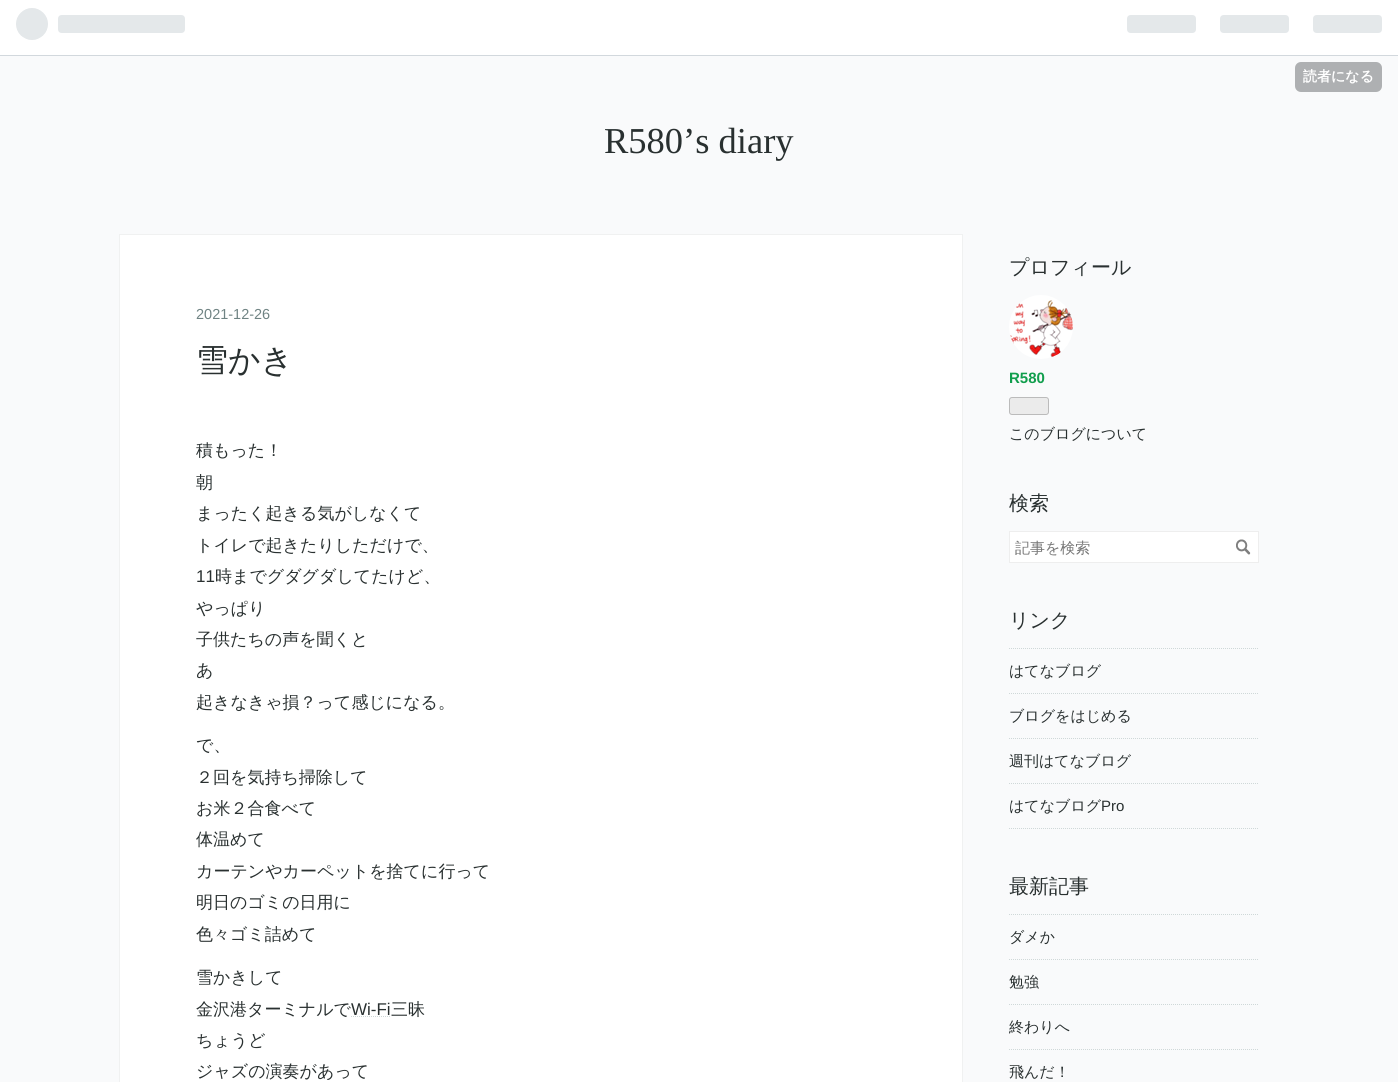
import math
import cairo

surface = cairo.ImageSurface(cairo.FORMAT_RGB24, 1398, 1082)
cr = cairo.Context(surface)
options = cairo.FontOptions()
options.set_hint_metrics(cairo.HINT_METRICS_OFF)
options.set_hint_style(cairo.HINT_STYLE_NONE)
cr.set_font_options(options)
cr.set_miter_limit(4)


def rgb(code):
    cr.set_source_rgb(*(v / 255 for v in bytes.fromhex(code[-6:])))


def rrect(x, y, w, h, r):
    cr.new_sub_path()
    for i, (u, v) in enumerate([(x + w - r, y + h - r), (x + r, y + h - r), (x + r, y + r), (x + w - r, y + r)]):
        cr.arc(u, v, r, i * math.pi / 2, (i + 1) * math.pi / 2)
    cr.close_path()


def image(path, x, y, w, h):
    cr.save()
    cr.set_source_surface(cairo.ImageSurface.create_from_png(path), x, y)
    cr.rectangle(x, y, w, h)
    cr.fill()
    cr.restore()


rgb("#f9fafb")
cr.paint()
rgb("#ffffff")
cr.rectangle(0, 0, 1398, 55)
cr.fill()
rgb("#d2d8dd")
cr.rectangle(0, 55, 1398, 1)
cr.fill()
image("img/1.png", 16, 8, 169, 32)
image("img/2.png", 1127, 15, 255, 18)
rgb("#aeb0b2")
rrect(1295, 62, 87, 30, 6)
cr.fill()
rgb("#ffffff")
cr.rectangle(119.5, 234.5, 843, 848)
cr.fill_preserve()
rgb("#f0f1f1")
cr.set_line_width(1)
cr.stroke()
cr.new_path()
cr.move_to(351, 1016.5)
cr.line_to(390.5, 1016.5)
rgb("#cfd8d8")
cr.set_dash([1, 1])
cr.stroke()
image("img/3.png", 1009, 295, 64, 64)
rgb("#ebebeb")
rrect(1009.5, 397.5, 39, 17, 2.5)
cr.fill_preserve()
rgb("#bbbbbb")
cr.set_dash([])
cr.stroke()
rgb("#ffffff")
cr.rectangle(1009.5, 531.5, 249, 31)
cr.fill_preserve()
rgb("#eeeeee")
cr.stroke()
image("img/4.png", 1236, 539, 15, 16)
cr.new_path()
cr.move_to(1009, 648.5)
cr.line_to(1259, 648.5)
rgb("#cfd8d8")
cr.set_dash([1, 1])
cr.stroke()
cr.new_path()
cr.move_to(1009, 693.5)
cr.line_to(1259, 693.5)
cr.stroke()
cr.new_path()
cr.move_to(1009, 738.5)
cr.line_to(1259, 738.5)
cr.stroke()
cr.new_path()
cr.move_to(1009, 783.5)
cr.line_to(1259, 783.5)
cr.stroke()
cr.new_path()
cr.move_to(1009, 828.5)
cr.line_to(1259, 828.5)
cr.stroke()
cr.new_path()
cr.move_to(1009, 914.5)
cr.line_to(1259, 914.5)
cr.stroke()
cr.new_path()
cr.move_to(1009, 959.5)
cr.line_to(1259, 959.5)
cr.stroke()
cr.new_path()
cr.move_to(1009, 1004.5)
cr.line_to(1259, 1004.5)
cr.stroke()
cr.new_path()
cr.move_to(1009, 1049.5)
cr.line_to(1259, 1049.5)
cr.stroke()
cr.select_font_face("WenQuanYi Zen Hei", cairo.FONT_SLANT_NORMAL, cairo.FONT_WEIGHT_BOLD)
cr.set_font_size(14)
rgb("#ffffff")
cr.move_to(1303, 81)
cr.show_text("読者になる")
cr.select_font_face("Liberation Serif")
cr.set_font_size(36.5)
rgb("#293030")
cr.move_to(604, 153)
cr.show_text("R580’s diary")
cr.select_font_face("Liberation Sans")
cr.set_font_size(14.5)
rgb("#6f8383")
cr.move_to(196, 319)
cr.show_text("2021-12-26")
cr.select_font_face("WenQuanYi Zen Hei Medium")
cr.set_font_size(32)
rgb("#293030")
cr.move_to(196, 371)
cr.show_text("雪かき")
cr.set_font_size(17)
for x, y, s in [
    (196, 456, "積もった！"),
    (196, 488, "朝"),
    (196, 519, "まったく起きる気がしなくて"),
    (196, 551, "トイレで起きたりしただけで、"),
]:
    cr.move_to(x, y)
    cr.show_text(s)
cr.select_font_face("Liberation Sans")
cr.move_to(196, 582)
cr.show_text("11")
cr.select_font_face("WenQuanYi Zen Hei Medium")
for x, y, s in [
    (215, 582, "時までグダグダしてたけど、"),
    (196, 614, "やっぱり"),
    (196, 645, "子供たちの声を聞くと"),
    (196, 676, "あ"),
    (196, 708, "起きなきゃ損？って感じになる。"),
    (196, 751, "で、"),
    (196, 783, "２回を気持ち掃除して"),
    (196, 814, "お米２合食べて"),
    (196, 845, "体温めて"),
    (196, 877, "カーテンやカーペットを捨てに行って"),
    (196, 908, "明日のゴミの日用に"),
    (196, 940, "色々ゴミ詰めて"),
    (196, 983, "雪かきして"),
    (196, 1015, "金沢港ターミナルで"),
]:
    cr.move_to(x, y)
    cr.show_text(s)
cr.select_font_face("Liberation Sans")
cr.move_to(351, 1015)
cr.show_text("Wi-Fi")
cr.select_font_face("WenQuanYi Zen Hei Medium")
for x, y, s in [
    (391, 1015, "三昧"),
    (196, 1046, "ちょうど"),
    (196, 1077, "ジャズの演奏があって"),
]:
    cr.move_to(x, y)
    cr.show_text(s)
cr.set_font_size(20)
cr.move_to(1009, 274)
cr.show_text("プロフィール")
cr.select_font_face("Liberation Sans", cairo.FONT_SLANT_NORMAL, cairo.FONT_WEIGHT_BOLD)
cr.set_font_size(15)
rgb("#119e4d")
cr.move_to(1009, 383)
cr.show_text("R580")
cr.select_font_face("WenQuanYi Zen Hei Medium")
rgb("#293030")
cr.move_to(1009, 439)
cr.show_text("このブログについて")
cr.set_font_size(20)
cr.move_to(1009, 510)
cr.show_text("検索")
cr.set_font_size(15)
rgb("#757575")
cr.move_to(1015, 553)
cr.show_text("記事を検索")
cr.set_font_size(20)
rgb("#293030")
cr.move_to(1009, 627)
cr.show_text("リンク")
cr.set_font_size(15)
for x, y, s in [
    (1009, 676, "はてなブログ"),
    (1009, 721, "ブログをはじめる"),
    (1009, 766, "週刊はてなブログ"),
    (1009, 811, "はてなブログ"),
]:
    cr.move_to(x, y)
    cr.show_text(s)
cr.select_font_face("Liberation Sans")
cr.move_to(1101, 811)
cr.show_text("Pro")
cr.select_font_face("WenQuanYi Zen Hei Medium")
cr.set_font_size(20)
cr.move_to(1009, 893)
cr.show_text("最新記事")
cr.set_font_size(15)
for x, y, s in [
    (1009, 942, "ダメか"),
    (1009, 987, "勉強"),
    (1009, 1032, "終わりへ"),
    (1009, 1077, "飛んだ！"),
]:
    cr.move_to(x, y)
    cr.show_text(s)
surface.write_to_png("page.png")
